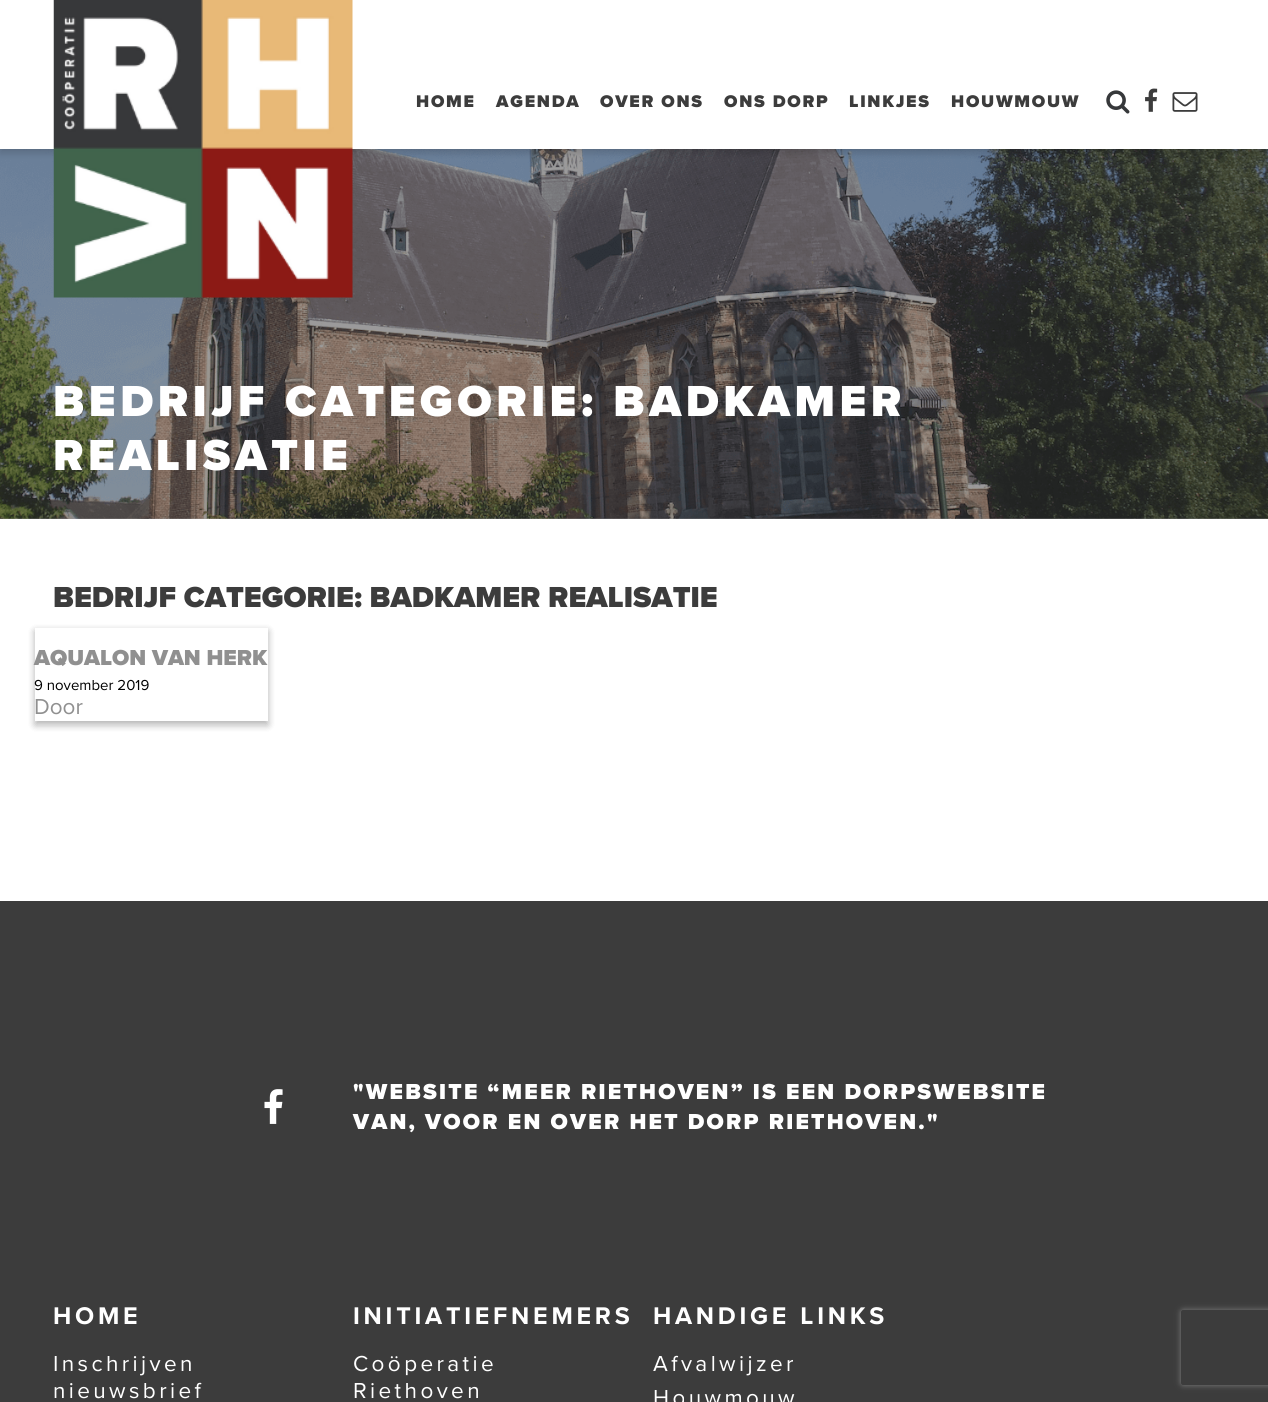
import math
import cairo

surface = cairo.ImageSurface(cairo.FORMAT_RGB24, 1268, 1402)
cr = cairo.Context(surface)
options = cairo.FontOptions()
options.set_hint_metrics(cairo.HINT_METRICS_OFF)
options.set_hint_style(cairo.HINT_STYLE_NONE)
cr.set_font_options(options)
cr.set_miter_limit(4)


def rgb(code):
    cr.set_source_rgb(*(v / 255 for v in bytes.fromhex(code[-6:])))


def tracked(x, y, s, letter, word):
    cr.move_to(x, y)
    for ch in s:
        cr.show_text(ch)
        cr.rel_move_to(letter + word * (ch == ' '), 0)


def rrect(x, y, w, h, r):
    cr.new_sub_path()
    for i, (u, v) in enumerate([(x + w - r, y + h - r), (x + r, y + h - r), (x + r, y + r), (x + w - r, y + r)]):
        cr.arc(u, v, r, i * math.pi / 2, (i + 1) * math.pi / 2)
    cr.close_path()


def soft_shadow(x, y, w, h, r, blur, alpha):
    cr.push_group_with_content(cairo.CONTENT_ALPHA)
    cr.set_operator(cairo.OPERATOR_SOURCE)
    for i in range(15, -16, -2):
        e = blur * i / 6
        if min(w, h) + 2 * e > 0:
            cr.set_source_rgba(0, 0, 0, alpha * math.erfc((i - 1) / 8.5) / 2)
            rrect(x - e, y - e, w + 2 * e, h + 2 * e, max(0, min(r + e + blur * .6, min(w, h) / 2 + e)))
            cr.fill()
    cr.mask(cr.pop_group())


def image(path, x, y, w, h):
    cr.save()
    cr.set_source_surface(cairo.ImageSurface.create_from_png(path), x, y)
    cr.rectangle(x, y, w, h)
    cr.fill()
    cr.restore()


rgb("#ffffff")
cr.paint()
rgb("#000000")
soft_shadow(0, 4, 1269, 149, 0, 4, 0.16)
image("img/5.png", 0, 149, 1268, 370)
cr.set_source_rgba(0.22, 0.224, 0.227, 0.5)
cr.rectangle(0, 149, 1268, 370)
cr.fill()
rgb("#000000")
soft_shadow(0, 4, 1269, 149, 0, 4, 0.16)
rgb("#ffffff")
cr.rectangle(0, 0, 1268, 149)
cr.fill()
image("img/1.png", 53, 0, 300, 298)
image("img/2.png", 1106, 90, 24, 24)
image("img/3.png", 1145, 88, 13, 24)
image("img/4.png", 1172, 92, 26, 20)
rgb("#000000")
soft_shadow(35, 631, 233, 94, 0, 4, 0.16)
soft_shadow(35, 631, 233, 94, 0, 4, 0.16)
rgb("#ffffff")
cr.rectangle(35, 628, 233, 93)
cr.fill()
rgb("#3c3c3c")
cr.rectangle(0, 901, 1268, 501)
cr.fill()
image("img/6.png", 264, 1089, 19, 35)
cr.save()
cr.set_fill_rule(cairo.FILL_RULE_EVEN_ODD)
cr.new_path()
cr.move_to(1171, 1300)
cr.line_to(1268, 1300)
cr.line_to(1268, 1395)
cr.line_to(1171, 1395)
cr.close_path()
cr.move_to(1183.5, 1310)
cr.line_to(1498.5, 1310)
cr.curve_to(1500, 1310, 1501, 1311, 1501, 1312.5)
cr.line_to(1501, 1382.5)
cr.curve_to(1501, 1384, 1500, 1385, 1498.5, 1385)
cr.line_to(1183.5, 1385)
cr.curve_to(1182, 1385, 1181, 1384, 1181, 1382.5)
cr.line_to(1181, 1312.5)
cr.curve_to(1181, 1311, 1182, 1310, 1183.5, 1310)
cr.close_path()
cr.clip()
rgb("#808080")
soft_shadow(1181, 1310, 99, 75, 2.5, 3, 1)
cr.restore()
cr.select_font_face("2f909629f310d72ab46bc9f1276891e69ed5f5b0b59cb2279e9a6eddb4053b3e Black")
cr.set_font_size(17.5)
for x, y, s in [
    (416, 107, "HOME"),
    (496, 107, "AGENDA"),
    (600, 107, "OVER ONS"),
    (724, 107, "ONS DORP"),
    (849, 107, "LINKJES"),
    (951, 107, "HOUWMOUW"),
]:
    tracked(x, y, s, 1.75, 0)
cr.set_font_size(45)
rgb("#ffffff")
tracked(53, 416, "BEDRIJF CATEGORIE: BADKAMER", 4.5, 0)
tracked(53, 470, "REALISATIE", 4.5, 0)
cr.set_font_size(30)
rgb("#3c3c3c")
cr.move_to(53, 607)
cr.show_text("BEDRIJF CATEGORIE: BADKAMER REALISATIE")
cr.set_font_size(22.5)
rgb("#909090")
cr.move_to(34, 665)
cr.show_text("AQUALON VAN HERK")
cr.select_font_face("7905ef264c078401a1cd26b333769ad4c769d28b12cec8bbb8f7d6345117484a")
cr.set_font_size(15)
rgb("#000000")
cr.move_to(34, 690)
cr.show_text("9 november 2019")
cr.set_font_size(22.5)
rgb("#909090")
cr.move_to(34, 714)
cr.show_text("Door")
cr.select_font_face("2f909629f310d72ab46bc9f1276891e69ed5f5b0b59cb2279e9a6eddb4053b3e Black")
rgb("#ffffff")
tracked(353, 1099, "\"WEBSITE “MEER RIETHOVEN” IS EEN DORPSWEBSITE", 2.25, 0)
tracked(353, 1129, "VAN, VOOR EN OVER HET DORP RIETHOVEN.\"", 2.25, 0)
cr.select_font_face("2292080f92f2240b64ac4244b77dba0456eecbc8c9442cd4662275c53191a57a", cairo.FONT_SLANT_NORMAL, cairo.FONT_WEIGHT_BOLD)
cr.set_font_size(25)
tracked(53, 1324, "HOME", 3.75, 0)
cr.select_font_face("7905ef264c078401a1cd26b333769ad4c769d28b12cec8bbb8f7d6345117484a")
cr.set_font_size(22.5)
tracked(53, 1371, "Inschrijven", 3.4, 0)
tracked(53, 1398, "nieuwsbrief", 3.4, 0)
cr.select_font_face("2292080f92f2240b64ac4244b77dba0456eecbc8c9442cd4662275c53191a57a", cairo.FONT_SLANT_NORMAL, cairo.FONT_WEIGHT_BOLD)
cr.set_font_size(25)
tracked(353, 1324, "INITIATIEFNEMERS", 3.75, 0)
cr.select_font_face("7905ef264c078401a1cd26b333769ad4c769d28b12cec8bbb8f7d6345117484a")
cr.set_font_size(22.5)
tracked(353, 1371, "Coöperatie", 3.4, 0)
tracked(353, 1398, "Riethoven", 3.4, 0)
cr.select_font_face("2292080f92f2240b64ac4244b77dba0456eecbc8c9442cd4662275c53191a57a", cairo.FONT_SLANT_NORMAL, cairo.FONT_WEIGHT_BOLD)
cr.set_font_size(25)
tracked(653, 1324, "HANDIGE LINKS", 3.75, 0)
cr.select_font_face("7905ef264c078401a1cd26b333769ad4c769d28b12cec8bbb8f7d6345117484a")
cr.set_font_size(22.5)
tracked(653, 1371, "Afvalwijzer", 3.4, 0)
tracked(653, 1405, "Houwmouw", 3.4, 0)
surface.write_to_png("page.png")
